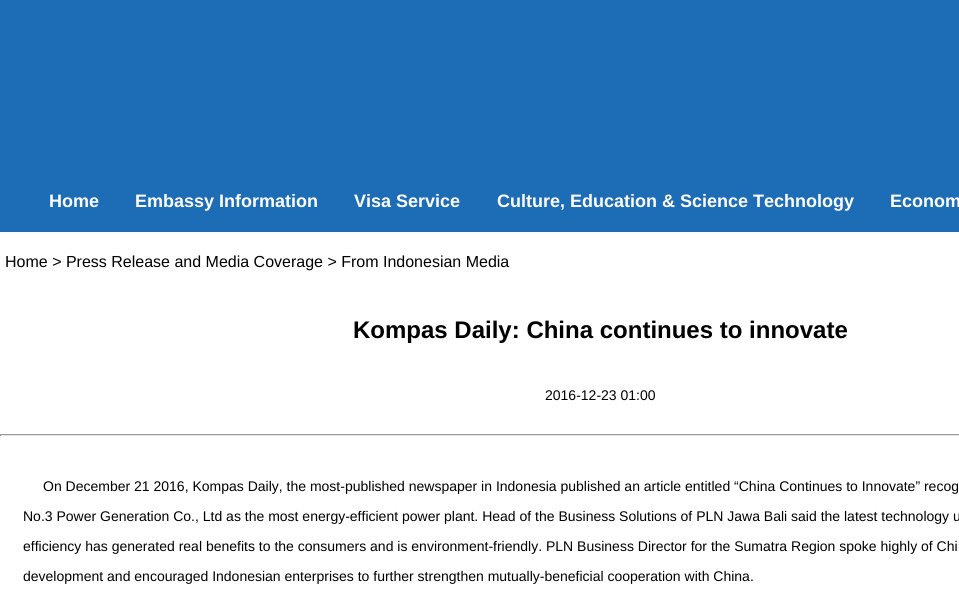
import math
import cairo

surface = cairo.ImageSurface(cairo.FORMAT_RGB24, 959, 607)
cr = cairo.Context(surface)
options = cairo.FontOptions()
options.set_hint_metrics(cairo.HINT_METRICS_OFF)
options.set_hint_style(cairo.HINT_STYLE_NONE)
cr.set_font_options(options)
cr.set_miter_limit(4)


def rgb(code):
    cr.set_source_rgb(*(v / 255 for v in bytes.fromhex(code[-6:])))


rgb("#ffffff")
cr.paint()
for x, y, w, h, color in [
    (0, 0, 959, 232, "#1c6cb6"),
    (0, 434, 959, 1, "#999999"),
    (0, 435, 959, 1, "#e5e5e5"),
    (0, 434, 1, 2, "#999999"),
]:
    rgb(color)
    cr.rectangle(x, y, w, h)
    cr.fill()
cr.select_font_face("Liberation Sans", cairo.FONT_SLANT_NORMAL, cairo.FONT_WEIGHT_BOLD)
cr.set_font_size(18)
rgb("#ffffff")
for x, y, s in [
    (49, 207, "Home"),
    (135, 207, "Embassy Information"),
    (354, 207, "Visa Service"),
    (497, 207, "Culture, Education & Science Technology"),
    (890, 207, "Econom"),
]:
    cr.move_to(x, y)
    cr.show_text(s)
cr.select_font_face("Liberation Sans")
cr.set_font_size(16)
rgb("#000000")
cr.move_to(5, 267)
cr.show_text("Home > Press Release and Media Coverage > From Indonesian Media")
cr.select_font_face("Liberation Sans", cairo.FONT_SLANT_NORMAL, cairo.FONT_WEIGHT_BOLD)
cr.set_font_size(24)
cr.move_to(353, 338)
cr.show_text("Kompas Daily: China continues to innovate")
cr.select_font_face("Liberation Sans")
cr.set_font_size(14)
for x, y, s in [
    (545, 400, "2016-12-23 01:00"),
    (43, 491, "On December 21 2016, Kompas Daily, the most-published newspaper in Indonesia published an article entitled “China Continues to Innovate” recog"),
    (23, 521, "No.3 Power Generation Co., Ltd as the most energy-efficient power plant. Head of the Business Solutions of PLN Jawa Bali said the latest technology u"),
    (23, 551, "efficiency has generated real benefits to the consumers and is environment-friendly. PLN Business Director for the Sumatra Region spoke highly of Chi"),
    (23, 581, "development and encouraged Indonesian enterprises to further strengthen mutually-beneficial cooperation with China."),
]:
    cr.move_to(x, y)
    cr.show_text(s)
surface.write_to_png("page.png")
